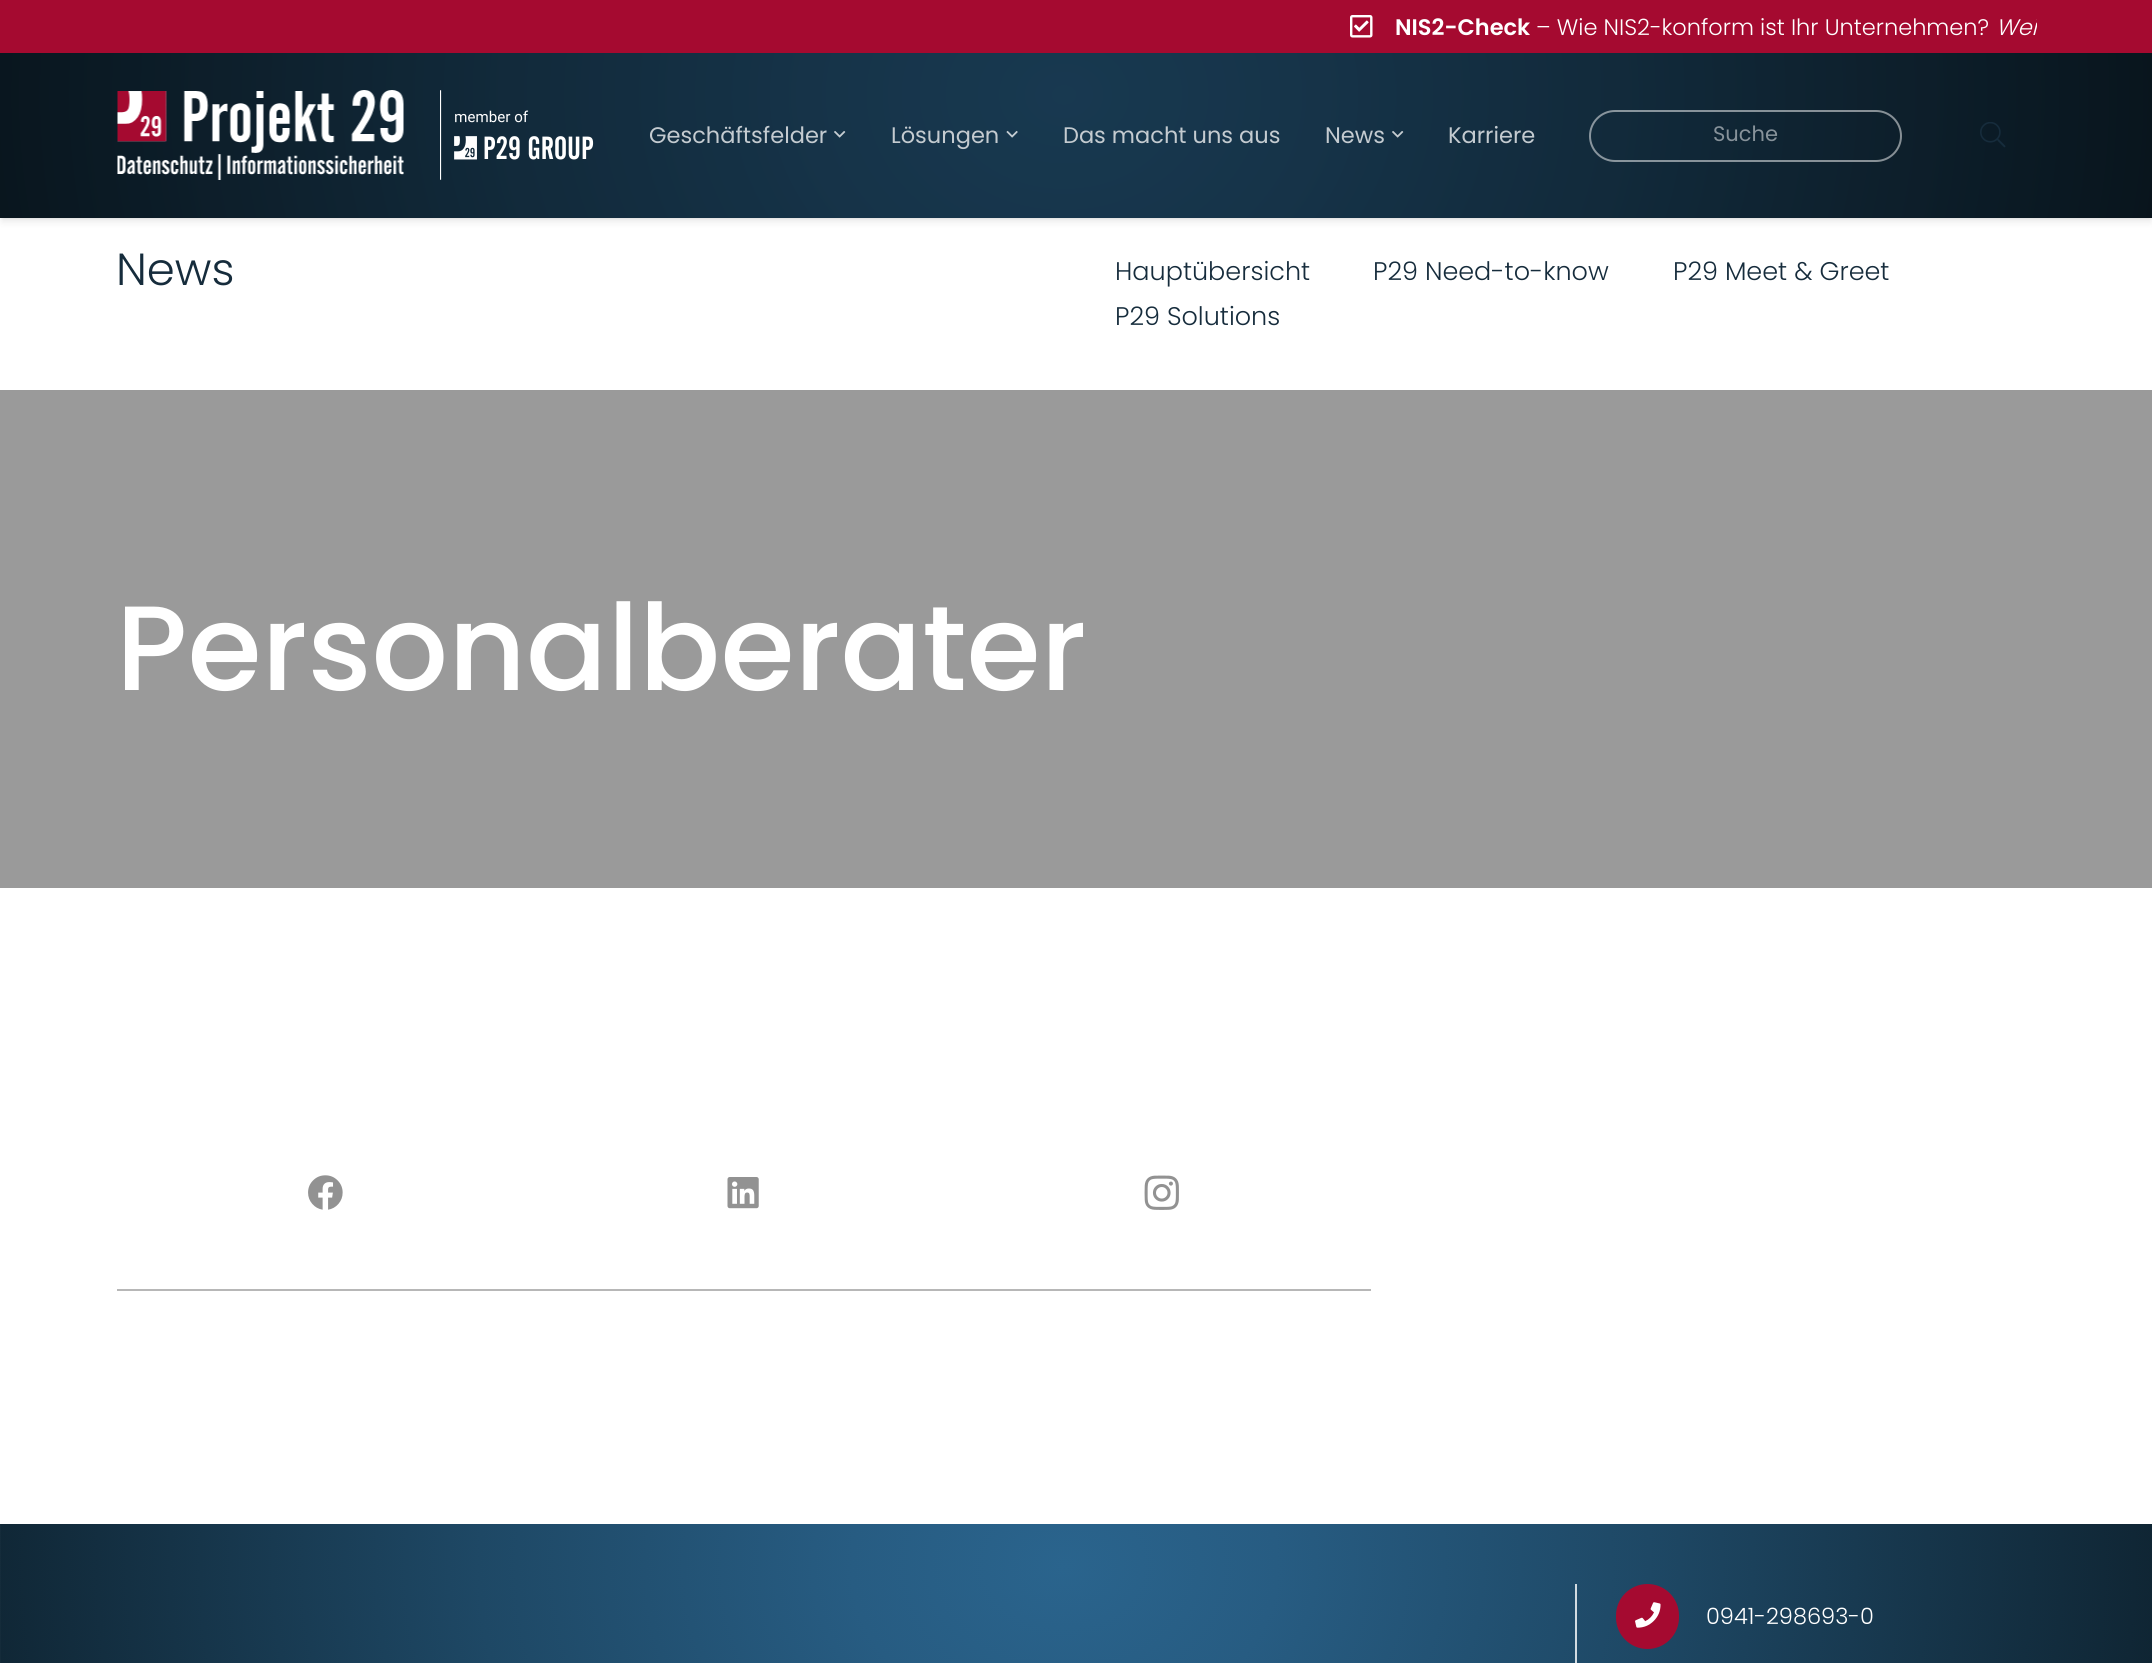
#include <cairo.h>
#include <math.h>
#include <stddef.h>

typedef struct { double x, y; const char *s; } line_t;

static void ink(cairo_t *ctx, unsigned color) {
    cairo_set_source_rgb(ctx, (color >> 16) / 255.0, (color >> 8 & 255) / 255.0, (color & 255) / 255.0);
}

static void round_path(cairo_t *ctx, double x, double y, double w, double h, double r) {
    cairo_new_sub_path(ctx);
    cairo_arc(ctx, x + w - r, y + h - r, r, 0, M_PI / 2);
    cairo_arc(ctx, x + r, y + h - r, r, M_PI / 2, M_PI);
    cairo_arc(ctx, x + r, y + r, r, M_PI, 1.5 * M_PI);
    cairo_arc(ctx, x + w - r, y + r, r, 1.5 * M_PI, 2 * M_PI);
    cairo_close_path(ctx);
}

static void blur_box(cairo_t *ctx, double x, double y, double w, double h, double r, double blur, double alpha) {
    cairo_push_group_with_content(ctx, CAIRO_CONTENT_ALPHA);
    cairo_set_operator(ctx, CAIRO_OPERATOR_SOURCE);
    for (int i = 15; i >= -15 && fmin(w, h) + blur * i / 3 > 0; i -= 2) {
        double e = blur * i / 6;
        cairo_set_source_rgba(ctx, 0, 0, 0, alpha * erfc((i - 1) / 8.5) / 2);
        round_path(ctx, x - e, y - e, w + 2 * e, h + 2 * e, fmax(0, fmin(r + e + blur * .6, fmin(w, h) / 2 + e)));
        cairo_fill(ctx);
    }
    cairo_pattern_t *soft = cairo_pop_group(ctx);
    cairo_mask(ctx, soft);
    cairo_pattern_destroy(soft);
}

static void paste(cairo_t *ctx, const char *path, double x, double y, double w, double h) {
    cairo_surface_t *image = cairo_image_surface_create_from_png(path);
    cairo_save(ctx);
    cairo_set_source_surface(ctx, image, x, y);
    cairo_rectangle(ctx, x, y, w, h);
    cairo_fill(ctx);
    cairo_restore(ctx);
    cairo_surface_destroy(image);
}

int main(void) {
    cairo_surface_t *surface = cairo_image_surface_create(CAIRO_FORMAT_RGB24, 2152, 1663);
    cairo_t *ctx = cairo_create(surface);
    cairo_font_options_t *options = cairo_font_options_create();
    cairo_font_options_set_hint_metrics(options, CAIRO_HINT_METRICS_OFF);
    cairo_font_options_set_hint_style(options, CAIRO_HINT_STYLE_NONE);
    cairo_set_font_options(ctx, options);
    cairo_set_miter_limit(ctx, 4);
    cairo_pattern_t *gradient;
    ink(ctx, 0xFFFFFF);
    cairo_paint(ctx);
    ink(ctx, 0x000000);
    blur_box(ctx, 2, 59, 2149, 162, 0, 4, 0.1);
    ink(ctx, 0xA50A30);
    cairo_rectangle(ctx, 0, 0, 2152, 53);
    cairo_fill(ctx);
    paste(ctx, "media/1.png", 1350, 15, 23, 23);
    cairo_select_font_face(ctx, "Poppins SemiBold", CAIRO_FONT_SLANT_NORMAL, CAIRO_FONT_WEIGHT_NORMAL);
    cairo_set_font_size(ctx, 22.5);
    ink(ctx, 0xFFFFFF);
    cairo_move_to(ctx, 1395, 35);
    cairo_show_text(ctx, "NIS2-Check");
    cairo_select_font_face(ctx, "Poppins Light", CAIRO_FONT_SLANT_NORMAL, CAIRO_FONT_WEIGHT_NORMAL);
    cairo_move_to(ctx, 1536, 35);
    cairo_show_text(ctx, "– Wie NIS2-konform ist Ihr Unternehmen?");
    cairo_save(ctx);
    cairo_rectangle(ctx, 1350, 0, 687, 38);
    cairo_clip(ctx);
    cairo_select_font_face(ctx, "Poppins Light", CAIRO_FONT_SLANT_ITALIC, CAIRO_FONT_WEIGHT_NORMAL);
    cairo_move_to(ctx, 1996, 35);
    cairo_show_text(ctx, "Wei");
    cairo_restore(ctx);
    ink(ctx, 0x000000);
    blur_box(ctx, 2, 57, 2149, 162, 0, 1, 0.05);
    gradient = cairo_pattern_create_radial(0, 0, 0, 0, 0, 1);
    cairo_pattern_set_matrix(gradient, &(cairo_matrix_t){1.0 / 1409, 0, 0, 1.0 / 1107, -1.0 * 1064 / 1409, -1.0 * 95 / 1107});
    cairo_pattern_add_color_stop_rgba(gradient, 0, 0.165, 0.392, 0.553, 1);
    cairo_pattern_add_color_stop_rgba(gradient, 0.15, 0.153, 0.361, 0.51, 1);
    cairo_pattern_add_color_stop_rgba(gradient, 0.42, 0.118, 0.282, 0.396, 1);
    cairo_pattern_add_color_stop_rgba(gradient, 0.76, 0.063, 0.153, 0.212, 1);
    cairo_pattern_add_color_stop_rgba(gradient, 1, 0.02, 0.051, 0.071, 1);
    cairo_pattern_add_color_stop_rgba(gradient, 1, 0.02, 0.051, 0.071, 1);
    cairo_set_source(ctx, gradient);
    cairo_pattern_destroy(gradient);
    cairo_rectangle(ctx, 0, 53, 2152, 165);
    cairo_fill(ctx);
    cairo_set_source_rgba(ctx, 0, 0, 0, 0.43);
    cairo_rectangle(ctx, 0, 53, 2152, 165);
    cairo_fill(ctx);
    paste(ctx, "media/2.png", 117, 90, 287, 90);
    paste(ctx, "media/3.png", 440, 90, 154, 90);
    cairo_select_font_face(ctx, "Poppins", CAIRO_FONT_SLANT_NORMAL, CAIRO_FONT_WEIGHT_NORMAL);
    ink(ctx, 0xC4CBD0);
    cairo_move_to(ctx, 649, 143);
    cairo_show_text(ctx, "Geschäftsfelder");
    paste(ctx, "media/4.png", 834, 131, 12, 7);
    cairo_move_to(ctx, 891, 143);
    cairo_show_text(ctx, "Lösungen");
    paste(ctx, "media/5.png", 1006, 130, 12, 8);
    cairo_move_to(ctx, 1063, 143);
    cairo_show_text(ctx, "Das macht uns aus");
    cairo_move_to(ctx, 1325, 143);
    cairo_show_text(ctx, "News");
    paste(ctx, "media/6.png", 1392, 131, 12, 7);
    cairo_move_to(ctx, 1448, 143);
    cairo_show_text(ctx, "Karriere");
    round_path(ctx, 1590, 111, 311, 50, 25);
    cairo_set_source_rgba(ctx, 1, 1, 1, 0.5);
    cairo_stroke(ctx);
    cairo_set_font_size(ctx, 21);
    ink(ctx, 0x87929A);
    cairo_move_to(ctx, 1713, 141);
    cairo_show_text(ctx, "Suche");
    paste(ctx, "media/7.png", 1980, 122, 26, 26);
    cairo_select_font_face(ctx, "Poppins Light", CAIRO_FONT_SLANT_NORMAL, CAIRO_FONT_WEIGHT_NORMAL);
    cairo_set_font_size(ctx, 45);
    ink(ctx, 0x162C3C);
    cairo_move_to(ctx, 116, 285);
    cairo_show_text(ctx, "News");
    cairo_set_font_size(ctx, 25.5);
    {
        static const line_t items[] = {
            {1115, 280, "Hauptübersicht"},
            {1373, 280, "P29 Need-to-know"},
            {1673, 280, "P29 Meet & Greet"},
            {1115, 325, "P29 Solutions"},
        };
        for (size_t i = 0; i < sizeof items / sizeof *items; i++) {
            cairo_move_to(ctx, items[i].x, items[i].y);
            cairo_show_text(ctx, items[i].s);
        }
    }
    ink(ctx, 0x9A9A9A);
    cairo_rectangle(ctx, 0, 390, 2152, 498);
    cairo_fill(ctx);
    cairo_select_font_face(ctx, "Poppins Medium", CAIRO_FONT_SLANT_NORMAL, CAIRO_FONT_WEIGHT_NORMAL);
    cairo_set_font_size(ctx, 120);
    ink(ctx, 0xFFFFFF);
    cairo_move_to(ctx, 116, 690);
    cairo_show_text(ctx, "Personalberater");
    paste(ctx, "media/8.png", 308, 1175, 35, 35);
    paste(ctx, "media/9.png", 727, 1177, 32, 32);
    paste(ctx, "media/10.png", 1144, 1175, 35, 35);
    ink(ctx, 0xB7B7B7);
    cairo_rectangle(ctx, 117, 1289, 1254, 2);
    cairo_fill(ctx);
    paste(ctx, "media/11.png", 0, 1524, 2152, 139);
    ink(ctx, 0xD2DBE1);
    cairo_rectangle(ctx, 1575, 1584, 2, 79);
    cairo_fill(ctx);
    ink(ctx, 0xA50A30);
    round_path(ctx, 1616, 1584, 63, 65, 31.5);
    cairo_fill(ctx);
    paste(ctx, "media/12.png", 1635, 1602, 26, 26);
    cairo_select_font_face(ctx, "Poppins Light", CAIRO_FONT_SLANT_NORMAL, CAIRO_FONT_WEIGHT_NORMAL);
    cairo_set_font_size(ctx, 22.5);
    ink(ctx, 0xFFFFFF);
    cairo_move_to(ctx, 1706, 1624);
    cairo_show_text(ctx, "0941-298693-0");
    cairo_surface_write_to_png(surface, "image.png");
    cairo_font_options_destroy(options);
    cairo_destroy(ctx);
    cairo_surface_destroy(surface);
    return 0;
}
